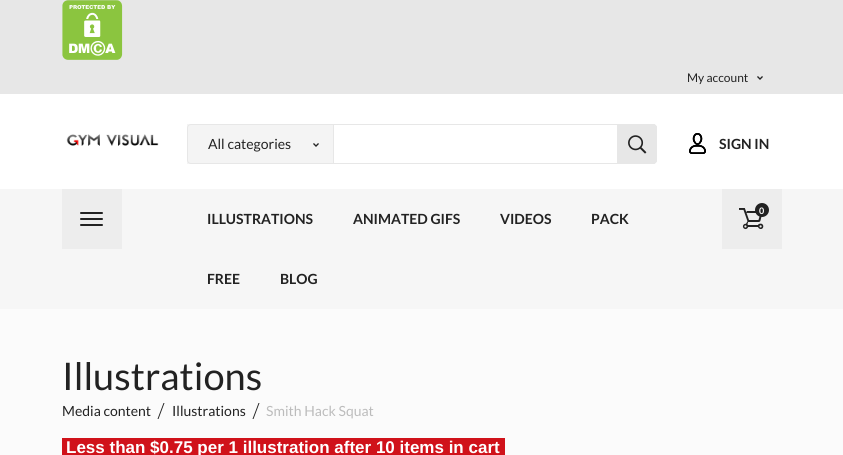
#include <cairo.h>
#include <math.h>
#include <stddef.h>

typedef struct { double x, y; const char *s; } line_t;

static void ink(cairo_t *ctx, unsigned color) {
    cairo_set_source_rgb(ctx, (color >> 16) / 255.0, (color >> 8 & 255) / 255.0, (color & 255) / 255.0);
}

static void paste(cairo_t *ctx, const char *path, double x, double y, double w, double h) {
    cairo_surface_t *image = cairo_image_surface_create_from_png(path);
    cairo_save(ctx);
    cairo_set_source_surface(ctx, image, x, y);
    cairo_rectangle(ctx, x, y, w, h);
    cairo_fill(ctx);
    cairo_restore(ctx);
    cairo_surface_destroy(image);
}

int main(void) {
    cairo_surface_t *surface = cairo_image_surface_create(CAIRO_FORMAT_RGB24, 843, 455);
    cairo_t *ctx = cairo_create(surface);
    cairo_font_options_t *options = cairo_font_options_create();
    cairo_font_options_set_hint_metrics(options, CAIRO_HINT_METRICS_OFF);
    cairo_font_options_set_hint_style(options, CAIRO_HINT_STYLE_NONE);
    cairo_set_font_options(ctx, options);
    cairo_set_miter_limit(ctx, 4);
    ink(ctx, 0xFFFFFF);
    cairo_paint(ctx);
    ink(ctx, 0xE7E7E7);
    cairo_rectangle(ctx, 0, 0, 843, 94);
    cairo_fill(ctx);
    paste(ctx, "media/1.png", 62, 0, 61, 60);
    cairo_select_font_face(ctx, "Lato", CAIRO_FONT_SLANT_NORMAL, CAIRO_FONT_WEIGHT_NORMAL);
    cairo_set_font_size(ctx, 12);
    ink(ctx, 0x222222);
    cairo_move_to(ctx, 687, 82);
    cairo_show_text(ctx, "My account");
    paste(ctx, "media/2.png", 757, 76, 6, 4);
    paste(ctx, "media/3.png", 66, 134, 93, 12);
    cairo_new_path(ctx);
    cairo_move_to(ctx, 187.5, 124.5);
    cairo_line_to(ctx, 653, 124.5);
    cairo_curve_to(ctx, 655, 124.5, 656.5, 126, 656.5, 128);
    cairo_line_to(ctx, 656.5, 160);
    cairo_curve_to(ctx, 656.5, 162, 655, 163.5, 653, 163.5);
    cairo_line_to(ctx, 187.5, 163.5);
    cairo_close_path(ctx);
    ink(ctx, 0xE7E7E7);
    cairo_set_line_width(ctx, 1);
    cairo_stroke(ctx);
    ink(ctx, 0xF4F4F4);
    cairo_rectangle(ctx, 187, 124, 146, 40);
    cairo_fill(ctx);
    paste(ctx, "media/4.png", 313, 143, 6, 4);
    cairo_new_path(ctx);
    cairo_move_to(ctx, 191, 124.5);
    cairo_line_to(ctx, 333.5, 124.5);
    cairo_line_to(ctx, 333.5, 163.5);
    cairo_line_to(ctx, 191, 163.5);
    cairo_curve_to(ctx, 189, 163.5, 187.5, 162, 187.5, 160);
    cairo_line_to(ctx, 187.5, 128);
    cairo_curve_to(ctx, 187.5, 126, 189, 124.5, 191, 124.5);
    cairo_close_path(ctx);
    ink(ctx, 0xE7E7E7);
    cairo_stroke(ctx);
    cairo_set_font_size(ctx, 14);
    ink(ctx, 0x222222);
    cairo_move_to(ctx, 208, 149);
    cairo_show_text(ctx, "All categories");
    ink(ctx, 0xE7E7E7);
    cairo_new_path(ctx);
    cairo_move_to(ctx, 617, 124);
    cairo_line_to(ctx, 653, 124);
    cairo_curve_to(ctx, 655, 124, 657, 126, 657, 128);
    cairo_line_to(ctx, 657, 160);
    cairo_curve_to(ctx, 657, 162, 655, 164, 653, 164);
    cairo_line_to(ctx, 617, 164);
    cairo_close_path(ctx);
    cairo_fill(ctx);
    paste(ctx, "media/5.png", 628, 135, 19, 19);
    cairo_new_path(ctx);
    cairo_move_to(ctx, 617.5, 124.5);
    cairo_line_to(ctx, 653, 124.5);
    cairo_curve_to(ctx, 655, 124.5, 656.5, 126, 656.5, 128);
    cairo_line_to(ctx, 656.5, 160);
    cairo_curve_to(ctx, 656.5, 162, 655, 163.5, 653, 163.5);
    cairo_line_to(ctx, 617.5, 163.5);
    cairo_close_path(ctx);
    cairo_stroke(ctx);
    paste(ctx, "media/6.png", 689, 133, 17, 21);
    cairo_select_font_face(ctx, "Lato", CAIRO_FONT_SLANT_NORMAL, CAIRO_FONT_WEIGHT_BOLD);
    ink(ctx, 0x222222);
    cairo_move_to(ctx, 719, 149);
    cairo_show_text(ctx, "SIGN IN");
    ink(ctx, 0xF6F6F6);
    cairo_rectangle(ctx, 0, 189, 843, 120);
    cairo_fill(ctx);
    ink(ctx, 0xEDEDED);
    cairo_rectangle(ctx, 62, 189, 60, 60);
    cairo_fill(ctx);
    paste(ctx, "media/7.png", 80, 212, 23, 14);
    cairo_rectangle(ctx, 722, 189, 60, 60);
    cairo_fill(ctx);
    paste(ctx, "media/8.png", 739, 208, 25, 22);
    ink(ctx, 0x222222);
    cairo_arc(ctx, 762, 210, 7, 0, 2 * M_PI);
    cairo_fill(ctx);
    cairo_set_font_size(ctx, 9);
    ink(ctx, 0xFFFFFF);
    cairo_move_to(ctx, 759, 214);
    cairo_show_text(ctx, "0");
    cairo_set_font_size(ctx, 14);
    ink(ctx, 0x222222);
    {
        static const line_t items[] = {
            {207, 224, "ILLUSTRATIONS"},
            {353, 224, "ANIMATED GIFS"},
            {500, 224, "VIDEOS"},
            {591, 224, "PACK"},
            {207, 284, "FREE"},
            {280, 284, "BLOG"},
        };
        for (size_t i = 0; i < sizeof items / sizeof *items; i++) {
            cairo_move_to(ctx, items[i].x, items[i].y);
            cairo_show_text(ctx, items[i].s);
        }
    }
    ink(ctx, 0xFBFBFB);
    cairo_rectangle(ctx, 0, 309, 843, 146);
    cairo_fill(ctx);
    cairo_select_font_face(ctx, "Lato", CAIRO_FONT_SLANT_NORMAL, CAIRO_FONT_WEIGHT_NORMAL);
    cairo_set_font_size(ctx, 38);
    ink(ctx, 0x222222);
    cairo_move_to(ctx, 62, 390);
    cairo_show_text(ctx, "Illustrations");
    cairo_set_font_size(ctx, 14);
    cairo_move_to(ctx, 62, 416);
    cairo_show_text(ctx, "Media content");
    cairo_new_path(ctx);
    cairo_move_to(ctx, 163.5, 403);
    cairo_line_to(ctx, 164.5, 403);
    cairo_line_to(ctx, 158.5, 419);
    cairo_line_to(ctx, 157.5, 419);
    cairo_close_path(ctx);
    cairo_fill(ctx);
    cairo_move_to(ctx, 172, 416);
    cairo_show_text(ctx, "Illustrations");
    cairo_new_path(ctx);
    cairo_move_to(ctx, 258.5, 403);
    cairo_line_to(ctx, 259.5, 403);
    cairo_line_to(ctx, 253.5, 419);
    cairo_line_to(ctx, 252.5, 419);
    cairo_close_path(ctx);
    cairo_fill(ctx);
    ink(ctx, 0xBCBCBC);
    cairo_move_to(ctx, 266, 416);
    cairo_show_text(ctx, "Smith Hack Squat");
    ink(ctx, 0xD0121A);
    cairo_rectangle(ctx, 62, 438, 443, 17);
    cairo_fill(ctx);
    cairo_select_font_face(ctx, "Liberation Sans", CAIRO_FONT_SLANT_NORMAL, CAIRO_FONT_WEIGHT_BOLD);
    cairo_set_font_size(ctx, 17);
    ink(ctx, 0xFFFFFF);
    cairo_move_to(ctx, 66, 453);
    cairo_show_text(ctx, "Less than $0.75 per 1 illustration after 10 items in cart");
    cairo_surface_write_to_png(surface, "image.png");
    cairo_font_options_destroy(options);
    cairo_destroy(ctx);
    cairo_surface_destroy(surface);
    return 0;
}
